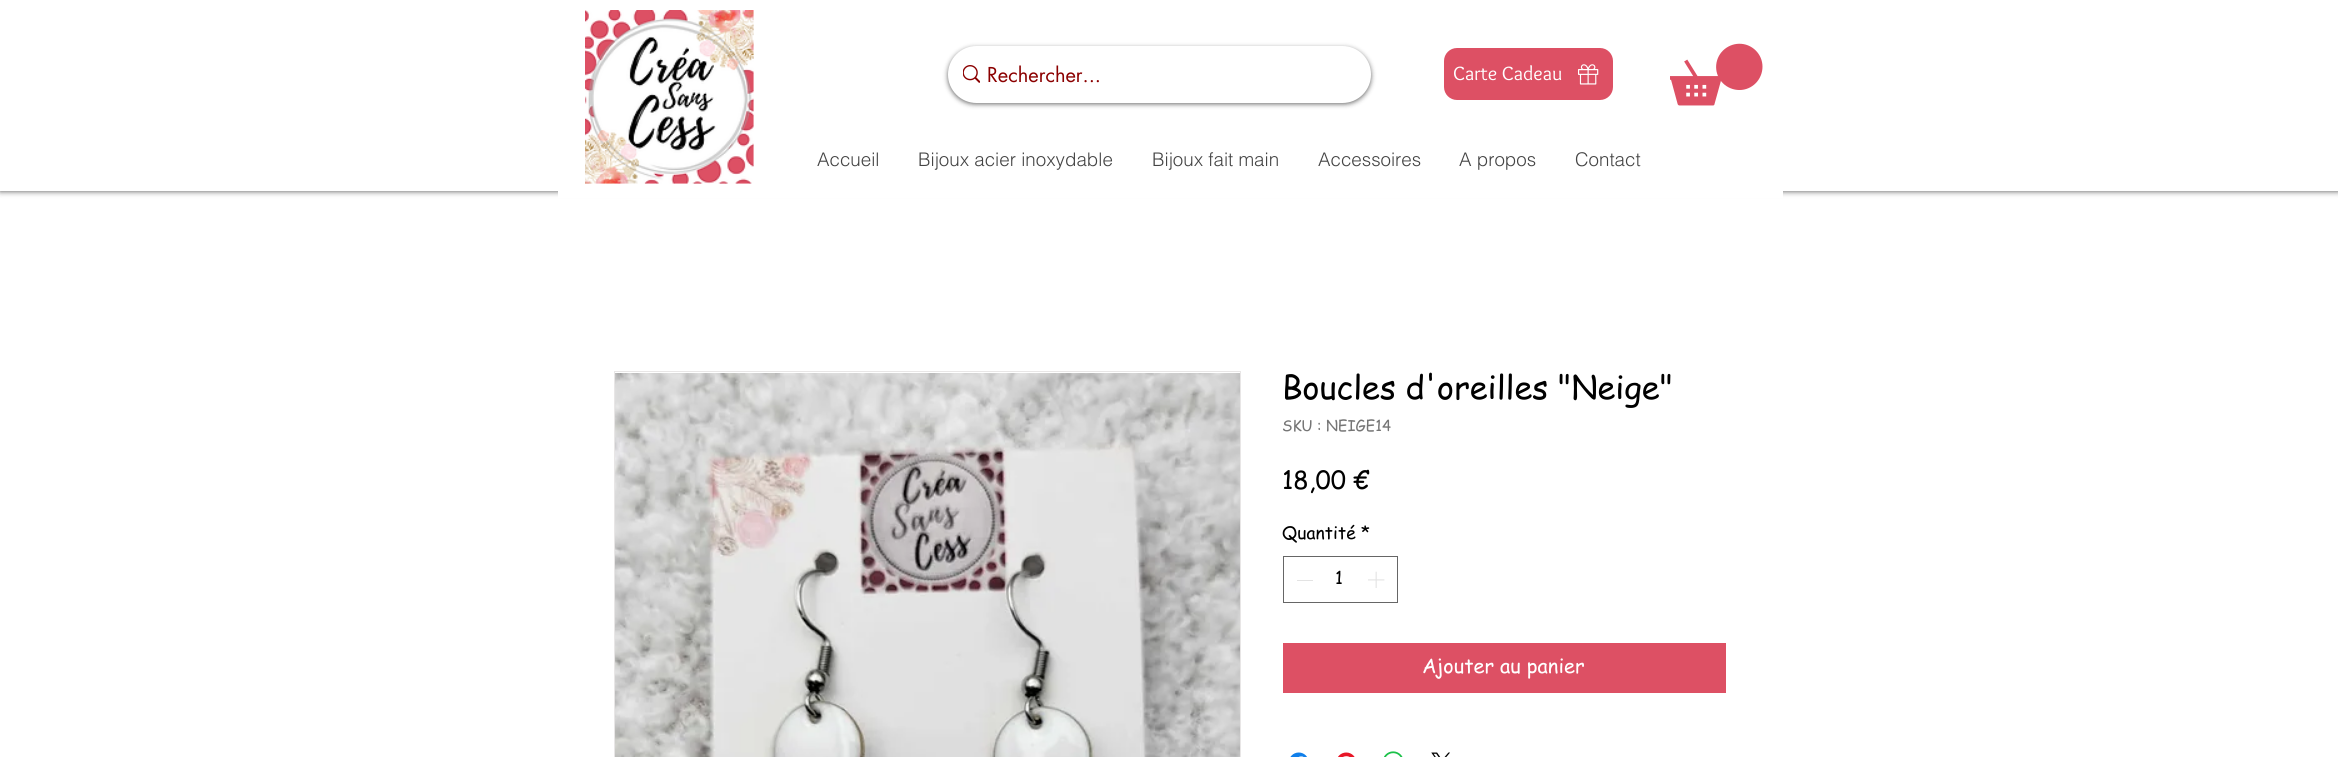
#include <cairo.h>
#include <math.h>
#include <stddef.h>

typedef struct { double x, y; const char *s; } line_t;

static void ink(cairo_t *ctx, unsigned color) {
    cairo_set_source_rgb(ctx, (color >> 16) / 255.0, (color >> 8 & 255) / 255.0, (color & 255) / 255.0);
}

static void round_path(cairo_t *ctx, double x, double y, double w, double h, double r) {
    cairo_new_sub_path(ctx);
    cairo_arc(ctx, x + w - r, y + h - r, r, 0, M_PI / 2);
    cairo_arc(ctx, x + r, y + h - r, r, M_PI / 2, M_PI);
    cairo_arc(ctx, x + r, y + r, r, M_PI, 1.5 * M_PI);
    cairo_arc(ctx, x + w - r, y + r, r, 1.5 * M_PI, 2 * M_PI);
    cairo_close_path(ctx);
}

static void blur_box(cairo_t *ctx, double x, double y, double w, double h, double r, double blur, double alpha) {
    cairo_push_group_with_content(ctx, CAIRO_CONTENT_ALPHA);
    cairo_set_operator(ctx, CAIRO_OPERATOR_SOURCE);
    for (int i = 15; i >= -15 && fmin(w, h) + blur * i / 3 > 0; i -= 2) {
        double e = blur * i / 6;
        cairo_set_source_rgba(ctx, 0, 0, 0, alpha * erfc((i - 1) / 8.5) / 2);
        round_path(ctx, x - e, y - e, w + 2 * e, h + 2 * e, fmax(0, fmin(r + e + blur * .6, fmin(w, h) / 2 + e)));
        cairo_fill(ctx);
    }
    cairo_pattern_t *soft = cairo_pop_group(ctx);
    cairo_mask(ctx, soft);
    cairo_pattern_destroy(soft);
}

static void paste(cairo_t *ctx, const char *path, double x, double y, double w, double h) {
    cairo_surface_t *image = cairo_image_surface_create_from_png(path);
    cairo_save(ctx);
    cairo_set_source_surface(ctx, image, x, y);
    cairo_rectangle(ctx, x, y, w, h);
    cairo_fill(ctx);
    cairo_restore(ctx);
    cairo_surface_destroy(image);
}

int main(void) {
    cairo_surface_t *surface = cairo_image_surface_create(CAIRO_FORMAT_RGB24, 2338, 757);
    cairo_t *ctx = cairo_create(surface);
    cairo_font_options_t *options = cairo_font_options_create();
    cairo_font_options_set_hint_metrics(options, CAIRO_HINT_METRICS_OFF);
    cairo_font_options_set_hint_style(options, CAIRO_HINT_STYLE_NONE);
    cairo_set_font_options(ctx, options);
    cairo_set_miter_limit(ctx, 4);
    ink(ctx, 0xFFFFFF);
    cairo_paint(ctx);
    ink(ctx, 0x000000);
    blur_box(ctx, 0, 0, 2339, 191, 0, 3, 0.7);
    ink(ctx, 0xFFFFFF);
    cairo_rectangle(ctx, 0, 0, 2338, 191);
    cairo_fill(ctx);
    paste(ctx, "media/1.png", 585, 10, 169, 174);
    ink(ctx, 0x000000);
    blur_box(ctx, 948, 48, 423, 56, 28, 2.5, 0.6);
    ink(ctx, 0xFFFFFF);
    round_path(ctx, 948, 46, 423, 57, 28.5);
    cairo_fill(ctx);
    paste(ctx, "media/2.png", 963, 65, 17, 18);
    cairo_select_font_face(ctx, "futura", CAIRO_FONT_SLANT_NORMAL, CAIRO_FONT_WEIGHT_NORMAL);
    cairo_set_font_size(ctx, 20);
    ink(ctx, 0x8B0000);
    cairo_move_to(ctx, 987, 82);
    cairo_show_text(ctx, "Rechercher...");
    ink(ctx, 0xDD5064);
    round_path(ctx, 1444, 48, 169, 52, 13);
    cairo_fill(ctx);
    cairo_select_font_face(ctx, "Overlock", CAIRO_FONT_SLANT_NORMAL, CAIRO_FONT_WEIGHT_NORMAL);
    ink(ctx, 0xFFFFFF);
    cairo_move_to(ctx, 1453, 80);
    cairo_show_text(ctx, "Carte Cadeau");
    paste(ctx, "media/3.png", 1578, 64, 21, 21);
    paste(ctx, "media/4.png", 1670, 43, 93, 63);
    cairo_select_font_face(ctx, "helvetica Light", CAIRO_FONT_SLANT_NORMAL, CAIRO_FONT_WEIGHT_NORMAL);
    cairo_set_font_size(ctx, 18.75);
    ink(ctx, 0x444444);
    {
        static const line_t items[] = {
            {817, 166, "Accueil"},
            {918, 166, "Bijoux acier inoxydable"},
            {1152, 166, "Bijoux fait main"},
            {1318, 166, "Accessoires"},
            {1459, 166, "A propos"},
            {1575, 166, "Contact"},
        };
        for (size_t i = 0; i < sizeof items / sizeof *items; i++) {
            cairo_move_to(ctx, items[i].x, items[i].y);
            cairo_show_text(ctx, items[i].s);
        }
    }
    ink(ctx, 0xFFFFFF);
    cairo_rectangle(ctx, 558, 191, 1225, 7);
    cairo_fill(ctx);
    cairo_rectangle(ctx, 614.5, 371.5, 626, 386);
    ink(ctx, 0xE8E6E6);
    cairo_set_line_width(ctx, 1);
    cairo_stroke(ctx);
    paste(ctx, "media/5.png", 615, 373, 625, 384);
    cairo_select_font_face(ctx, "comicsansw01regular", CAIRO_FONT_SLANT_NORMAL, CAIRO_FONT_WEIGHT_NORMAL);
    cairo_set_font_size(ctx, 32.5);
    ink(ctx, 0x000000);
    cairo_move_to(ctx, 1282, 399);
    cairo_show_text(ctx, "Boucles d'oreilles \"Neige\"");
    cairo_set_font_size(ctx, 15);
    ink(ctx, 0x757575);
    cairo_move_to(ctx, 1282, 431);
    cairo_show_text(ctx, "SKU : NEIGE14");
    cairo_set_font_size(ctx, 25);
    ink(ctx, 0x000000);
    cairo_move_to(ctx, 1282, 489);
    cairo_show_text(ctx, "18,00 €");
    cairo_set_font_size(ctx, 17.5);
    cairo_move_to(ctx, 1282, 539);
    cairo_show_text(ctx, "Quantité *");
    cairo_rectangle(ctx, 1283.5, 556.5, 114, 46);
    ink(ctx, 0x666666);
    cairo_stroke(ctx);
    ink(ctx, 0xE3E3E3);
    cairo_rectangle(ctx, 1297, 580, 16, 1);
    cairo_fill(ctx);
    ink(ctx, 0x000000);
    cairo_move_to(ctx, 1335, 584);
    cairo_show_text(ctx, "1");
    paste(ctx, "media/6.png", 1368, 571, 17, 17);
    ink(ctx, 0xDD5064);
    cairo_rectangle(ctx, 1283, 643, 443, 50);
    cairo_fill(ctx);
    cairo_set_font_size(ctx, 20);
    ink(ctx, 0xFFFFFF);
    cairo_move_to(ctx, 1422, 673);
    cairo_show_text(ctx, "Ajouter au panier");
    paste(ctx, "media/7.png", 1290, 752, 17, 5);
    paste(ctx, "media/8.png", 1338, 752, 17, 5);
    paste(ctx, "media/9.png", 1384, 751, 19, 6);
    paste(ctx, "media/10.png", 1431, 752, 19, 5);
    cairo_surface_write_to_png(surface, "image.png");
    cairo_font_options_destroy(options);
    cairo_destroy(ctx);
    cairo_surface_destroy(surface);
    return 0;
}
